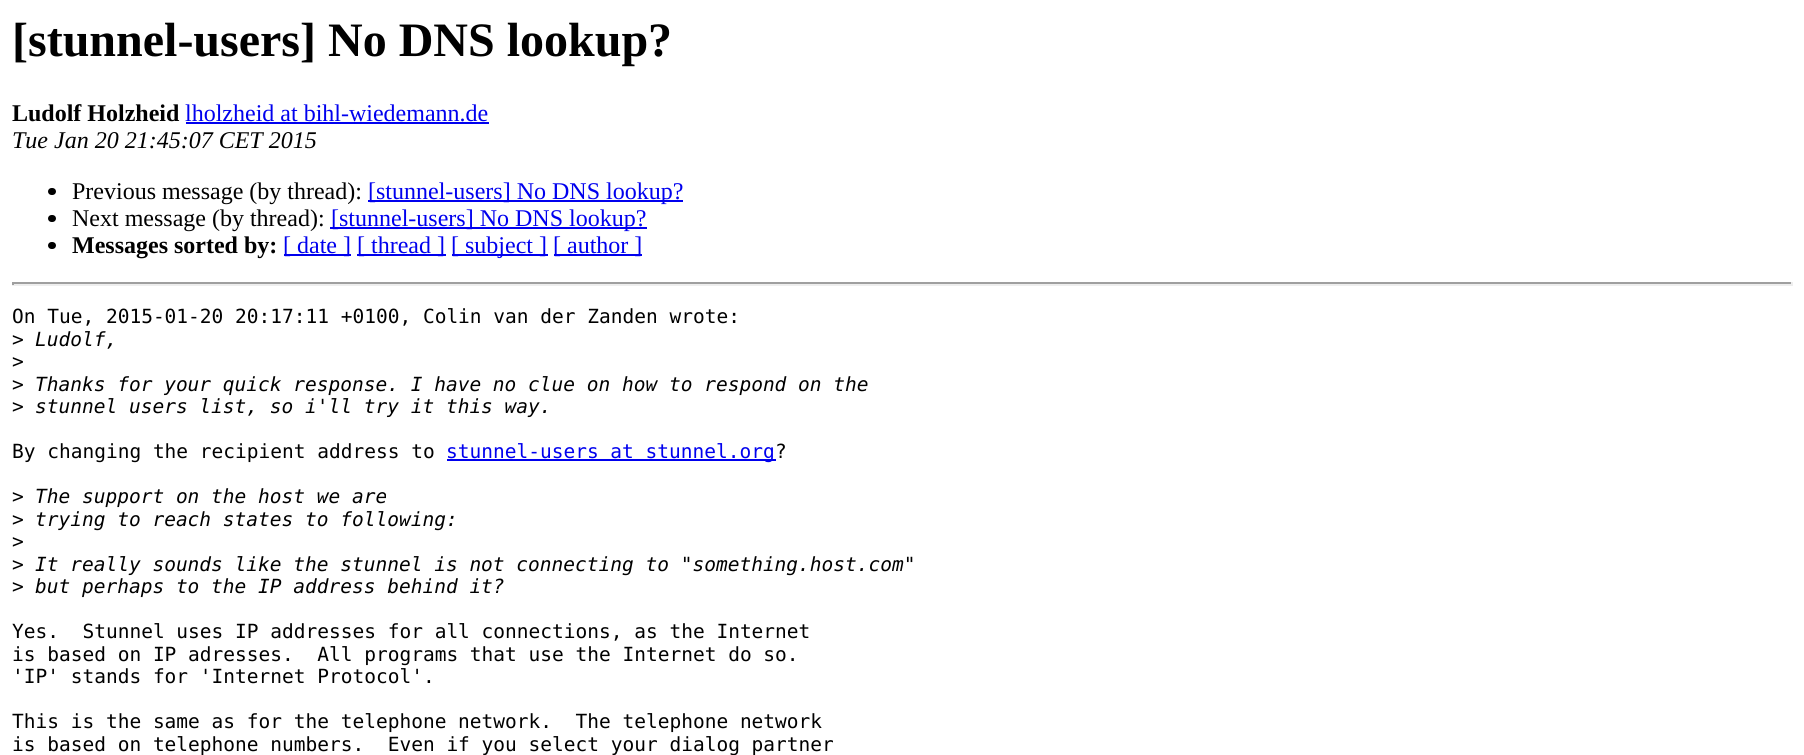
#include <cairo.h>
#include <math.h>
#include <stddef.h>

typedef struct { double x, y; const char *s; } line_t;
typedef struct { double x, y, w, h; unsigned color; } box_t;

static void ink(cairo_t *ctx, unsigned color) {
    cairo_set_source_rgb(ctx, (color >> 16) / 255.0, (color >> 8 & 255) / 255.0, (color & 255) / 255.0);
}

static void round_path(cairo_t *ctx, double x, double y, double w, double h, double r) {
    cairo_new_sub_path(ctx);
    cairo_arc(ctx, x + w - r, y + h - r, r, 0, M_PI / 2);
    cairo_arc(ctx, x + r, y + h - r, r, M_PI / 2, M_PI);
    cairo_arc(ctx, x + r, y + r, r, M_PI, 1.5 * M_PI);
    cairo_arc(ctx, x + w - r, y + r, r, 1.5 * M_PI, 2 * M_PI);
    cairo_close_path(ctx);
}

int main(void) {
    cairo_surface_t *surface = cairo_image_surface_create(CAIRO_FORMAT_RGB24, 1804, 755);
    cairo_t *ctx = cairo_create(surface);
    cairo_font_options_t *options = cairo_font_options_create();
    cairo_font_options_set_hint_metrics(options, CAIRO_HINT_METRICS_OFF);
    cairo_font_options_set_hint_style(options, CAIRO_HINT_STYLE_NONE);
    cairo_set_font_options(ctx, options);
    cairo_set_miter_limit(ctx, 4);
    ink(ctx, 0xFFFFFF);
    cairo_paint(ctx);
    cairo_select_font_face(ctx, "Liberation Serif", CAIRO_FONT_SLANT_NORMAL, CAIRO_FONT_WEIGHT_BOLD);
    cairo_set_font_size(ctx, 48);
    ink(ctx, 0x000000);
    cairo_move_to(ctx, 12, 56);
    cairo_show_text(ctx, "[stunnel-users] No DNS lookup?");
    cairo_set_font_size(ctx, 24);
    cairo_move_to(ctx, 12, 121);
    cairo_show_text(ctx, "Ludolf Holzheid");
    cairo_select_font_face(ctx, "Liberation Serif", CAIRO_FONT_SLANT_NORMAL, CAIRO_FONT_WEIGHT_NORMAL);
    ink(ctx, 0x0000EE);
    cairo_move_to(ctx, 185, 121);
    cairo_show_text(ctx, "lholzheid at bihl-wiedemann.de");
    cairo_rectangle(ctx, 186, 122, 303, 2);
    cairo_fill(ctx);
    cairo_select_font_face(ctx, "Liberation Serif", CAIRO_FONT_SLANT_ITALIC, CAIRO_FONT_WEIGHT_NORMAL);
    ink(ctx, 0x000000);
    cairo_move_to(ctx, 12, 148);
    cairo_show_text(ctx, "Tue Jan 20 21:45:07 CET 2015");
    round_path(ctx, 48, 188, 8, 7, 3.5);
    cairo_fill(ctx);
    cairo_select_font_face(ctx, "Liberation Serif", CAIRO_FONT_SLANT_NORMAL, CAIRO_FONT_WEIGHT_NORMAL);
    cairo_move_to(ctx, 72, 199);
    cairo_show_text(ctx, "Previous message (by thread):");
    ink(ctx, 0x0000EE);
    cairo_rectangle(ctx, 368, 200, 315, 2);
    cairo_fill(ctx);
    cairo_move_to(ctx, 368, 199);
    cairo_show_text(ctx, "[stunnel-users] No DNS lookup?");
    ink(ctx, 0x000000);
    round_path(ctx, 48, 215, 8, 7, 3.5);
    cairo_fill(ctx);
    cairo_move_to(ctx, 72, 226);
    cairo_show_text(ctx, "Next message (by thread):");
    ink(ctx, 0x0000EE);
    cairo_rectangle(ctx, 330, 227, 317, 2);
    cairo_fill(ctx);
    cairo_move_to(ctx, 331, 226);
    cairo_show_text(ctx, "[stunnel-users] No DNS lookup?");
    ink(ctx, 0x000000);
    round_path(ctx, 48, 242, 8, 7, 3.5);
    cairo_fill(ctx);
    cairo_select_font_face(ctx, "Liberation Serif", CAIRO_FONT_SLANT_NORMAL, CAIRO_FONT_WEIGHT_BOLD);
    cairo_move_to(ctx, 72, 253);
    cairo_show_text(ctx, "Messages sorted by:");
    ink(ctx, 0x0000EE);
    cairo_rectangle(ctx, 284, 254, 67, 2);
    cairo_fill(ctx);
    cairo_select_font_face(ctx, "Liberation Serif", CAIRO_FONT_SLANT_NORMAL, CAIRO_FONT_WEIGHT_NORMAL);
    cairo_move_to(ctx, 283, 253);
    cairo_show_text(ctx, "[ date ]");
    cairo_rectangle(ctx, 357, 254, 89, 2);
    cairo_fill(ctx);
    cairo_move_to(ctx, 357, 253);
    cairo_show_text(ctx, "[ thread ]");
    cairo_rectangle(ctx, 452, 254, 96, 2);
    cairo_fill(ctx);
    cairo_move_to(ctx, 451, 253);
    cairo_show_text(ctx, "[ subject ]");
    cairo_rectangle(ctx, 554, 254, 88, 2);
    cairo_fill(ctx);
    cairo_move_to(ctx, 553, 253);
    cairo_show_text(ctx, "[ author ]");
    {
        static const box_t items[] = {
            {12, 282, 1781, 2, 0x9F9F9F},
            {1791, 282, 2, 3, 0xEEEEEE},
            {12, 284, 1781, 2, 0xEEEEEE},
            {12, 282, 2, 3, 0x9F9F9F},
        };
        for (size_t i = 0; i < sizeof items / sizeof *items; i++) {
            ink(ctx, items[i].color);
            cairo_rectangle(ctx, items[i].x, items[i].y, items[i].w, items[i].h);
            cairo_fill(ctx);
        }
    }
    cairo_select_font_face(ctx, "DejaVu Sans Mono", CAIRO_FONT_SLANT_NORMAL, CAIRO_FONT_WEIGHT_NORMAL);
    cairo_set_font_size(ctx, 19.5);
    ink(ctx, 0x000000);
    cairo_move_to(ctx, 12, 323);
    cairo_show_text(ctx, "On Tue, 2015-01-20 20:17:11 +0100, Colin van der Zanden wrote:");
    cairo_move_to(ctx, 12, 346);
    cairo_show_text(ctx, ">");
    cairo_select_font_face(ctx, "DejaVu Sans Mono", CAIRO_FONT_SLANT_ITALIC, CAIRO_FONT_WEIGHT_NORMAL);
    cairo_move_to(ctx, 35, 346);
    cairo_show_text(ctx, "Ludolf,");
    cairo_select_font_face(ctx, "DejaVu Sans Mono", CAIRO_FONT_SLANT_NORMAL, CAIRO_FONT_WEIGHT_NORMAL);
    cairo_move_to(ctx, 12, 368);
    cairo_show_text(ctx, ">");
    cairo_move_to(ctx, 12, 391);
    cairo_show_text(ctx, ">");
    cairo_select_font_face(ctx, "DejaVu Sans Mono", CAIRO_FONT_SLANT_ITALIC, CAIRO_FONT_WEIGHT_NORMAL);
    cairo_move_to(ctx, 35, 391);
    cairo_show_text(ctx, "Thanks for your quick response. I have no clue on how to respond on the");
    cairo_select_font_face(ctx, "DejaVu Sans Mono", CAIRO_FONT_SLANT_NORMAL, CAIRO_FONT_WEIGHT_NORMAL);
    cairo_move_to(ctx, 12, 413);
    cairo_show_text(ctx, ">");
    cairo_select_font_face(ctx, "DejaVu Sans Mono", CAIRO_FONT_SLANT_ITALIC, CAIRO_FONT_WEIGHT_NORMAL);
    cairo_move_to(ctx, 35, 413);
    cairo_show_text(ctx, "stunnel users list, so i'll try it this way.");
    cairo_select_font_face(ctx, "DejaVu Sans Mono", CAIRO_FONT_SLANT_NORMAL, CAIRO_FONT_WEIGHT_NORMAL);
    cairo_move_to(ctx, 12, 458);
    cairo_show_text(ctx, "By changing the recipient address to");
    ink(ctx, 0x0000EE);
    cairo_rectangle(ctx, 447, 459, 329, 2);
    cairo_fill(ctx);
    cairo_move_to(ctx, 446, 458);
    cairo_show_text(ctx, "stunnel-users at stunnel.org");
    ink(ctx, 0x000000);
    cairo_move_to(ctx, 775, 458);
    cairo_show_text(ctx, "?");
    cairo_move_to(ctx, 12, 503);
    cairo_show_text(ctx, ">");
    cairo_select_font_face(ctx, "DejaVu Sans Mono", CAIRO_FONT_SLANT_ITALIC, CAIRO_FONT_WEIGHT_NORMAL);
    cairo_move_to(ctx, 35, 503);
    cairo_show_text(ctx, "The support on the host we are");
    cairo_select_font_face(ctx, "DejaVu Sans Mono", CAIRO_FONT_SLANT_NORMAL, CAIRO_FONT_WEIGHT_NORMAL);
    cairo_move_to(ctx, 12, 526);
    cairo_show_text(ctx, ">");
    cairo_select_font_face(ctx, "DejaVu Sans Mono", CAIRO_FONT_SLANT_ITALIC, CAIRO_FONT_WEIGHT_NORMAL);
    cairo_move_to(ctx, 35, 526);
    cairo_show_text(ctx, "trying to reach states to following:");
    cairo_select_font_face(ctx, "DejaVu Sans Mono", CAIRO_FONT_SLANT_NORMAL, CAIRO_FONT_WEIGHT_NORMAL);
    cairo_move_to(ctx, 12, 548);
    cairo_show_text(ctx, ">");
    cairo_move_to(ctx, 12, 571);
    cairo_show_text(ctx, ">");
    cairo_select_font_face(ctx, "DejaVu Sans Mono", CAIRO_FONT_SLANT_ITALIC, CAIRO_FONT_WEIGHT_NORMAL);
    cairo_move_to(ctx, 35, 571);
    cairo_show_text(ctx, "It really sounds like the stunnel is not connecting to \"something.host.com\"");
    cairo_select_font_face(ctx, "DejaVu Sans Mono", CAIRO_FONT_SLANT_NORMAL, CAIRO_FONT_WEIGHT_NORMAL);
    cairo_move_to(ctx, 12, 593);
    cairo_show_text(ctx, ">");
    cairo_select_font_face(ctx, "DejaVu Sans Mono", CAIRO_FONT_SLANT_ITALIC, CAIRO_FONT_WEIGHT_NORMAL);
    cairo_move_to(ctx, 35, 593);
    cairo_show_text(ctx, "but perhaps to the IP address behind it?");
    cairo_select_font_face(ctx, "DejaVu Sans Mono", CAIRO_FONT_SLANT_NORMAL, CAIRO_FONT_WEIGHT_NORMAL);
    {
        static const line_t items[] = {
            {12, 638, "Yes.  Stunnel uses IP addresses for all connections, as the Internet"},
            {12, 661, "is based on IP adresses.  All programs that use the Internet do so."},
            {12, 683, "'IP' stands for 'Internet Protocol'."},
            {12, 728, "This is the same as for the telephone network.  The telephone network"},
            {12, 751, "is based on telephone numbers.  Even if you select your dialog partner"},
        };
        for (size_t i = 0; i < sizeof items / sizeof *items; i++) {
            cairo_move_to(ctx, items[i].x, items[i].y);
            cairo_show_text(ctx, items[i].s);
        }
    }
    cairo_surface_write_to_png(surface, "image.png");
    cairo_font_options_destroy(options);
    cairo_destroy(ctx);
    cairo_surface_destroy(surface);
    return 0;
}
